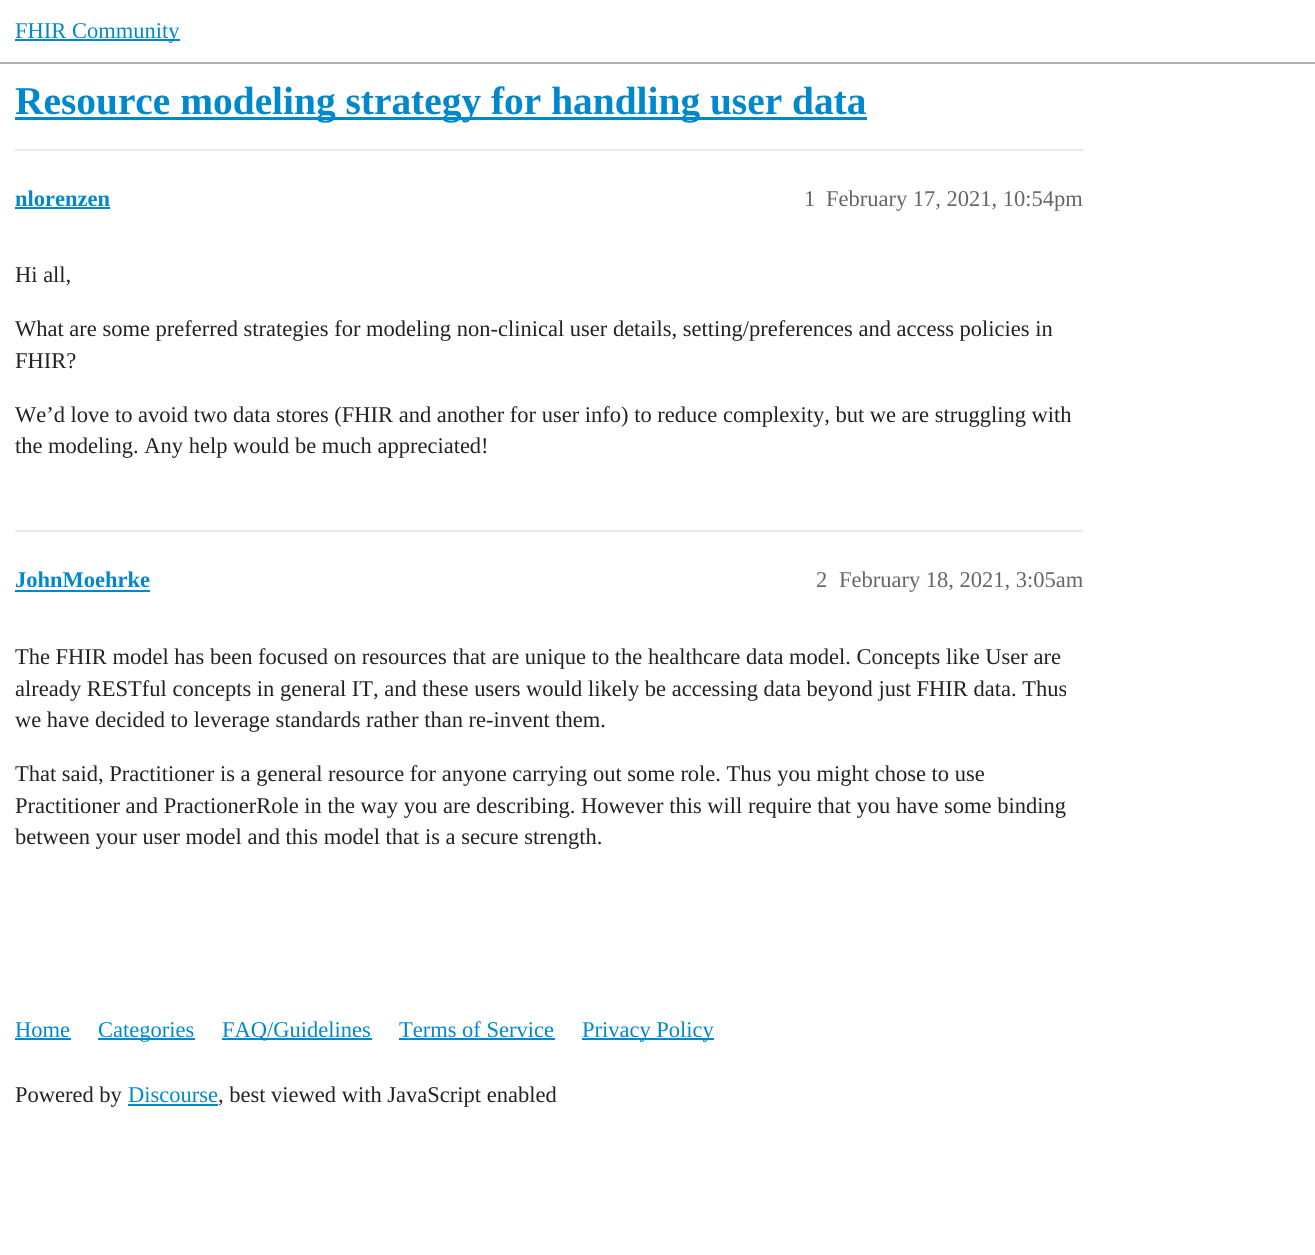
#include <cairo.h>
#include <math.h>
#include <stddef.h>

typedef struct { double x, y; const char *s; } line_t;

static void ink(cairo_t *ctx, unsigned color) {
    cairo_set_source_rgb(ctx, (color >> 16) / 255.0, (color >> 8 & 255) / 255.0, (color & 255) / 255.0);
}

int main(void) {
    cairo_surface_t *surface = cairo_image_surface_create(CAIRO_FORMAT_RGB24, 1315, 1255);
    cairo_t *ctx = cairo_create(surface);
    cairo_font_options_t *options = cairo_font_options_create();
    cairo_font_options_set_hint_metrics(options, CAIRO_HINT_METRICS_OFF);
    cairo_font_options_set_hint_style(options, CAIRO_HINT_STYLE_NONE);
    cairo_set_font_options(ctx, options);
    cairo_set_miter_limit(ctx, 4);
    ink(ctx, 0xFFFFFF);
    cairo_paint(ctx);
    ink(ctx, 0xAFAFAF);
    cairo_rectangle(ctx, 0, 62, 1315, 2);
    cairo_fill(ctx);
    ink(ctx, 0x0088CC);
    cairo_rectangle(ctx, 15, 39, 165, 2);
    cairo_fill(ctx);
    cairo_select_font_face(ctx, "Liberation Serif", CAIRO_FONT_SLANT_NORMAL, CAIRO_FONT_WEIGHT_NORMAL);
    cairo_set_font_size(ctx, 22.5);
    cairo_move_to(ctx, 15, 38);
    cairo_show_text(ctx, "FHIR Community");
    cairo_rectangle(ctx, 15, 117, 852, 3);
    cairo_fill(ctx);
    cairo_select_font_face(ctx, "Liberation Serif", CAIRO_FONT_SLANT_NORMAL, CAIRO_FONT_WEIGHT_BOLD);
    cairo_set_font_size(ctx, 39.4);
    cairo_move_to(ctx, 15, 114);
    cairo_show_text(ctx, "Resource modeling strategy for handling user data");
    ink(ctx, 0xE9E9E9);
    cairo_rectangle(ctx, 15, 149, 1068, 2);
    cairo_fill(ctx);
    cairo_set_font_size(ctx, 22.5);
    ink(ctx, 0x0088CC);
    cairo_move_to(ctx, 15, 206);
    cairo_show_text(ctx, "nlorenzen");
    cairo_rectangle(ctx, 15, 207, 95, 2);
    cairo_fill(ctx);
    cairo_select_font_face(ctx, "Liberation Serif", CAIRO_FONT_SLANT_NORMAL, CAIRO_FONT_WEIGHT_NORMAL);
    ink(ctx, 0x666666);
    cairo_move_to(ctx, 804, 206);
    cairo_show_text(ctx, "1");
    cairo_move_to(ctx, 826, 206);
    cairo_show_text(ctx, "February 17, 2021, 10:54pm");
    ink(ctx, 0x222222);
    {
        static const line_t items[] = {
            {15, 282, "Hi all,"},
            {15, 336, "What are some preferred strategies for modeling non-clinical user details, setting/preferences and access policies in"},
            {15, 368, "FHIR?"},
            {15, 422, "We’d love to avoid two data stores (FHIR and another for user info) to reduce complexity, but we are struggling with"},
            {15, 453, "the modeling. Any help would be much appreciated!"},
        };
        for (size_t i = 0; i < sizeof items / sizeof *items; i++) {
            cairo_move_to(ctx, items[i].x, items[i].y);
            cairo_show_text(ctx, items[i].s);
        }
    }
    ink(ctx, 0xE9E9E9);
    cairo_rectangle(ctx, 15, 530, 1068, 2);
    cairo_fill(ctx);
    cairo_select_font_face(ctx, "Liberation Serif", CAIRO_FONT_SLANT_NORMAL, CAIRO_FONT_WEIGHT_BOLD);
    ink(ctx, 0x0088CC);
    cairo_move_to(ctx, 15, 587);
    cairo_show_text(ctx, "JohnMoehrke");
    cairo_rectangle(ctx, 15, 590, 135, 2);
    cairo_fill(ctx);
    cairo_select_font_face(ctx, "Liberation Serif", CAIRO_FONT_SLANT_NORMAL, CAIRO_FONT_WEIGHT_NORMAL);
    ink(ctx, 0x666666);
    cairo_move_to(ctx, 816, 587);
    cairo_show_text(ctx, "2");
    cairo_move_to(ctx, 839, 587);
    cairo_show_text(ctx, "February 18, 2021, 3:05am");
    ink(ctx, 0x222222);
    {
        static const line_t items[] = {
            {15, 664, "The FHIR model has been focused on resources that are unique to the healthcare data model. Concepts like User are"},
            {15, 696, "already RESTful concepts in general IT, and these users would likely be accessing data beyond just FHIR data. Thus"},
            {15, 727, "we have decided to leverage standards rather than re-invent them."},
            {15, 781, "That said, Practitioner is a general resource for anyone carrying out some role. Thus you might chose to use"},
            {15, 813, "Practitioner and PractionerRole in the way you are describing. However this will require that you have some binding"},
            {15, 844, "between your user model and this model that is a secure strength."},
        };
        for (size_t i = 0; i < sizeof items / sizeof *items; i++) {
            cairo_move_to(ctx, items[i].x, items[i].y);
            cairo_show_text(ctx, items[i].s);
        }
    }
    ink(ctx, 0x0088CC);
    cairo_move_to(ctx, 15, 1037);
    cairo_show_text(ctx, "Home");
    cairo_rectangle(ctx, 15, 1038, 56, 2);
    cairo_fill(ctx);
    cairo_rectangle(ctx, 98, 1038, 97, 2);
    cairo_fill(ctx);
    cairo_move_to(ctx, 98, 1037);
    cairo_show_text(ctx, "Categories");
    cairo_rectangle(ctx, 222, 1038, 150, 2);
    cairo_fill(ctx);
    cairo_move_to(ctx, 222, 1037);
    cairo_show_text(ctx, "FAQ/Guidelines");
    cairo_move_to(ctx, 399, 1037);
    cairo_show_text(ctx, "Terms of Service");
    cairo_rectangle(ctx, 399, 1038, 156, 2);
    cairo_fill(ctx);
    cairo_rectangle(ctx, 582, 1038, 132, 2);
    cairo_fill(ctx);
    cairo_move_to(ctx, 582, 1037);
    cairo_show_text(ctx, "Privacy Policy");
    ink(ctx, 0x222222);
    cairo_move_to(ctx, 15, 1102);
    cairo_show_text(ctx, "Powered by");
    ink(ctx, 0x0088CC);
    cairo_move_to(ctx, 128, 1102);
    cairo_show_text(ctx, "Discourse");
    cairo_rectangle(ctx, 128, 1104, 90, 2);
    cairo_fill(ctx);
    ink(ctx, 0x222222);
    cairo_move_to(ctx, 218, 1102);
    cairo_show_text(ctx, ", best viewed with JavaScript enabled");
    cairo_surface_write_to_png(surface, "image.png");
    cairo_font_options_destroy(options);
    cairo_destroy(ctx);
    cairo_surface_destroy(surface);
    return 0;
}
